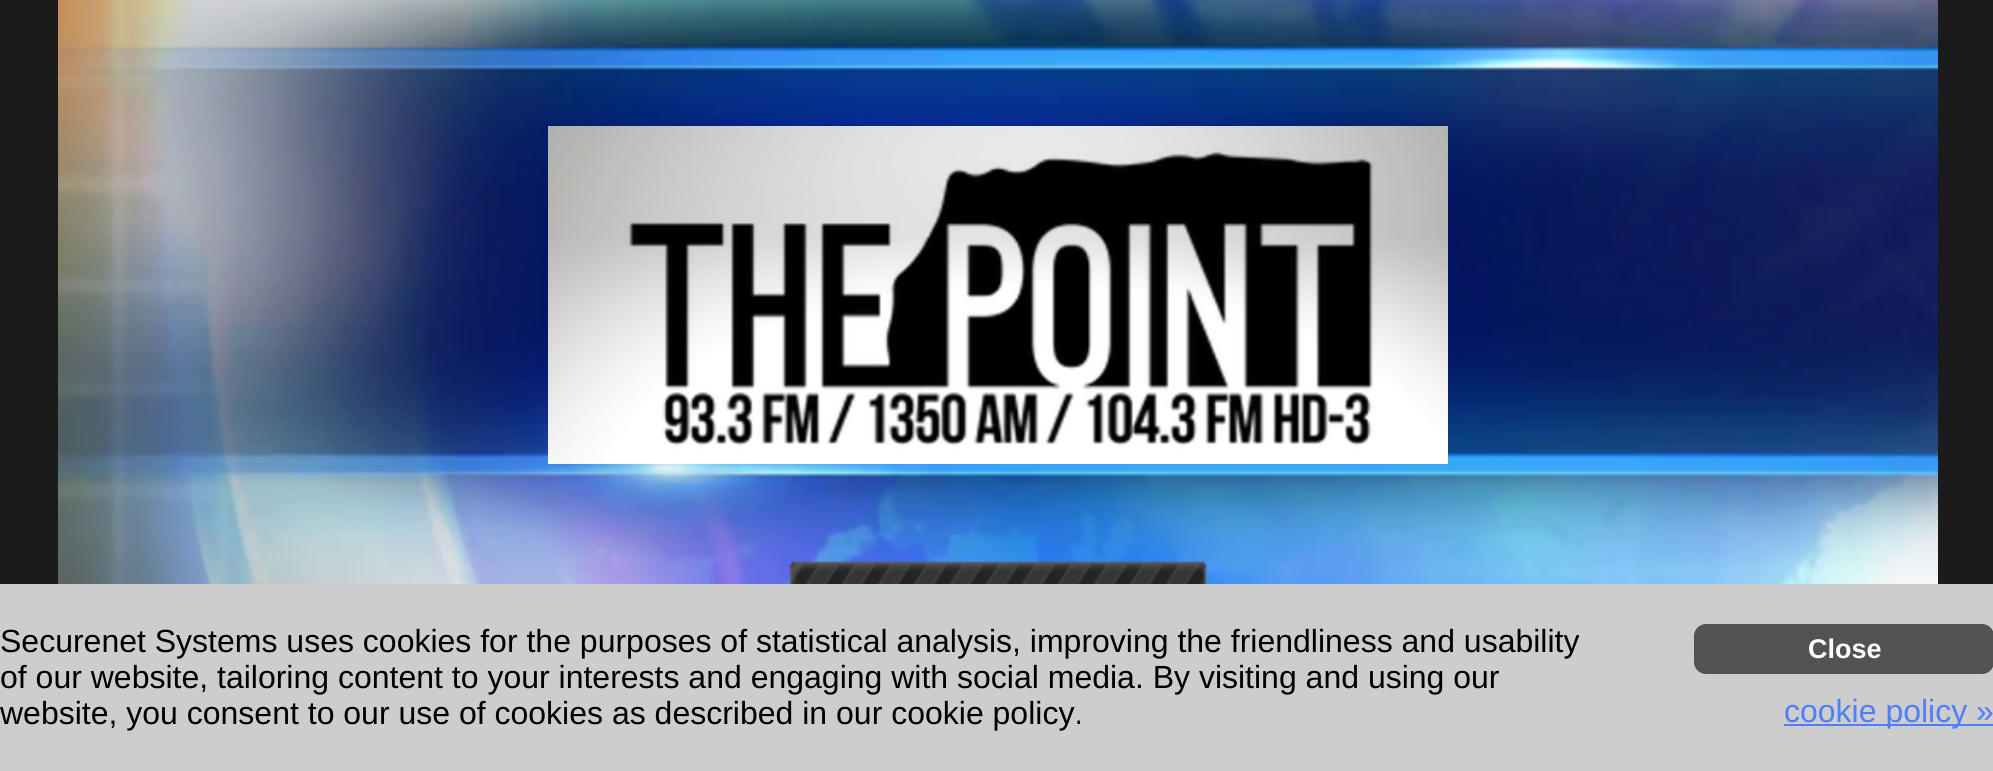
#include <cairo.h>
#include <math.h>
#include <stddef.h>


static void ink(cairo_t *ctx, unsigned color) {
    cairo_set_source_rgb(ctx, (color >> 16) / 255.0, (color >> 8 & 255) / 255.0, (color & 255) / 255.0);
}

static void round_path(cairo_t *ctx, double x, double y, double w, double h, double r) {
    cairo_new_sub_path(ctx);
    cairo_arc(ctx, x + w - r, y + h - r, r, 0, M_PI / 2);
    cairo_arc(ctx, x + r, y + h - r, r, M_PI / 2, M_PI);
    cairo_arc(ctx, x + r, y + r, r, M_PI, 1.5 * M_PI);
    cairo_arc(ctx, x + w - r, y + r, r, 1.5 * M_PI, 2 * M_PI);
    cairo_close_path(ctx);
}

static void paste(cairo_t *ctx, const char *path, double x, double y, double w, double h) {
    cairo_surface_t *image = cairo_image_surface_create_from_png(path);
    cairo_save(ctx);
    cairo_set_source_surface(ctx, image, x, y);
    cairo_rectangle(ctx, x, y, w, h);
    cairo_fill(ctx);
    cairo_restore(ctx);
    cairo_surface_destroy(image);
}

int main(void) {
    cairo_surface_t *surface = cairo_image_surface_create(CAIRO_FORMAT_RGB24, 1993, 771);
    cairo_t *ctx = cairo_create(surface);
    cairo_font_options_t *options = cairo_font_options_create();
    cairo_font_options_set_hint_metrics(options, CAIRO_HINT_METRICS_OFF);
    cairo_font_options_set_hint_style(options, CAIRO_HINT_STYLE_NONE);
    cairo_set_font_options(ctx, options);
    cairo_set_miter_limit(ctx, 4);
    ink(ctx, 0x1B1B1B);
    cairo_paint(ctx);
    paste(ctx, "media/1.png", 58, 0, 1880, 584);
    paste(ctx, "media/2.png", 548, 126, 900, 338);
    paste(ctx, "media/3.png", 789, 561, 418, 23);
    ink(ctx, 0xCDCDCD);
    cairo_rectangle(ctx, 0, 584, 1993, 187);
    cairo_fill(ctx);
    cairo_select_font_face(ctx, "Liberation Sans", CAIRO_FONT_SLANT_NORMAL, CAIRO_FONT_WEIGHT_NORMAL);
    cairo_set_font_size(ctx, 32);
    ink(ctx, 0x000000);
    cairo_move_to(ctx, 0, 652);
    cairo_show_text(ctx, "Securenet Systems uses cookies for the purposes of statistical analysis, improving the friendliness and usability");
    ink(ctx, 0x525252);
    round_path(ctx, 1694, 624, 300, 50, 12);
    cairo_fill(ctx);
    cairo_select_font_face(ctx, "Liberation Sans", CAIRO_FONT_SLANT_NORMAL, CAIRO_FONT_WEIGHT_BOLD);
    cairo_set_font_size(ctx, 27);
    ink(ctx, 0xFFFFFF);
    cairo_move_to(ctx, 1808, 658);
    cairo_show_text(ctx, "Close");
    ink(ctx, 0x4F7FF7);
    cairo_rectangle(ctx, 1784, 724, 209, 2);
    cairo_fill(ctx);
    cairo_select_font_face(ctx, "Liberation Sans", CAIRO_FONT_SLANT_NORMAL, CAIRO_FONT_WEIGHT_NORMAL);
    cairo_set_font_size(ctx, 32);
    cairo_move_to(ctx, 1784, 722);
    cairo_show_text(ctx, "cookie policy »");
    ink(ctx, 0x000000);
    cairo_move_to(ctx, 0, 688);
    cairo_show_text(ctx, "of our website, tailoring content to your interests and engaging with social media. By visiting and using our");
    cairo_move_to(ctx, 0, 724);
    cairo_show_text(ctx, "website, you consent to our use of cookies as described in our cookie policy.");
    cairo_surface_write_to_png(surface, "image.png");
    cairo_font_options_destroy(options);
    cairo_destroy(ctx);
    cairo_surface_destroy(surface);
    return 0;
}
